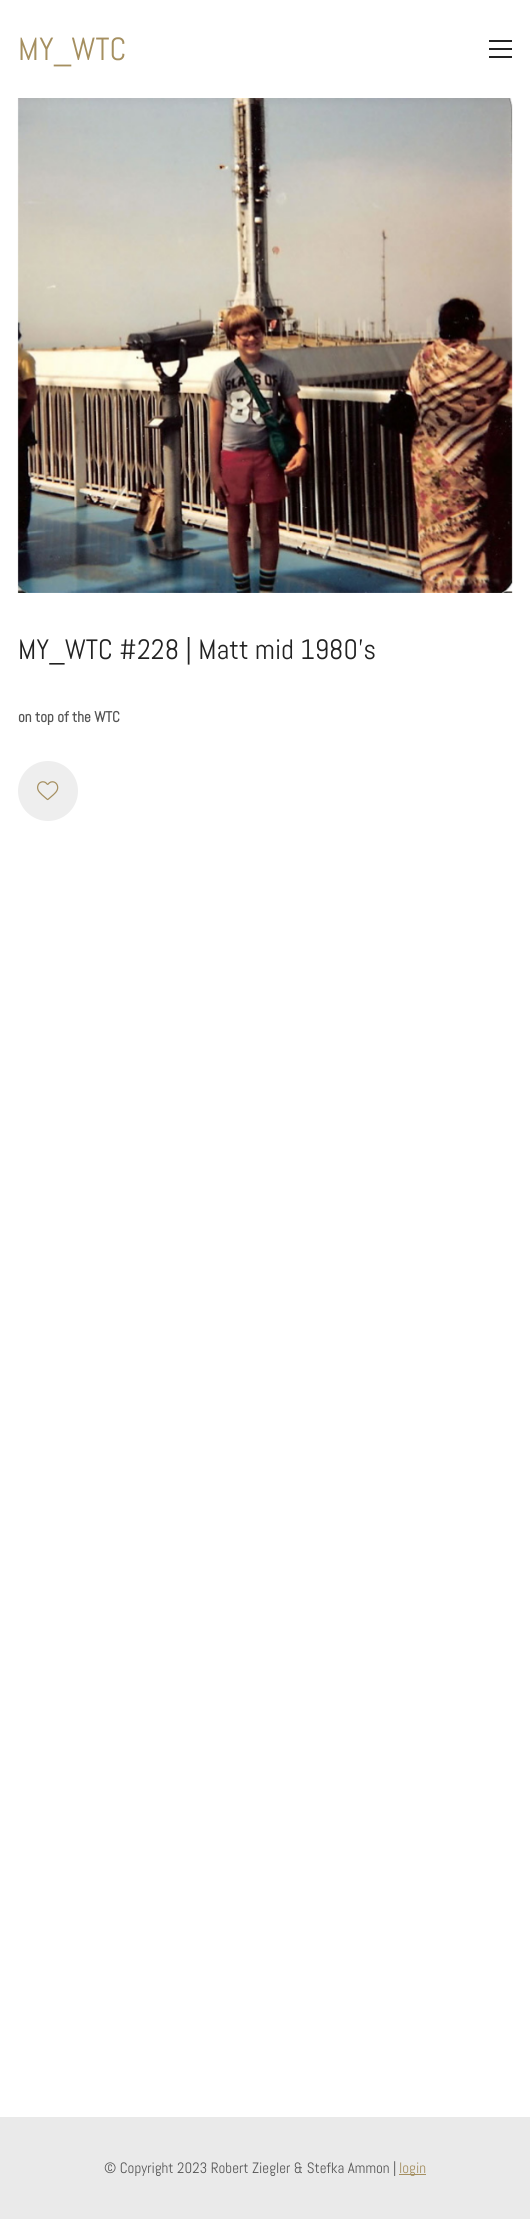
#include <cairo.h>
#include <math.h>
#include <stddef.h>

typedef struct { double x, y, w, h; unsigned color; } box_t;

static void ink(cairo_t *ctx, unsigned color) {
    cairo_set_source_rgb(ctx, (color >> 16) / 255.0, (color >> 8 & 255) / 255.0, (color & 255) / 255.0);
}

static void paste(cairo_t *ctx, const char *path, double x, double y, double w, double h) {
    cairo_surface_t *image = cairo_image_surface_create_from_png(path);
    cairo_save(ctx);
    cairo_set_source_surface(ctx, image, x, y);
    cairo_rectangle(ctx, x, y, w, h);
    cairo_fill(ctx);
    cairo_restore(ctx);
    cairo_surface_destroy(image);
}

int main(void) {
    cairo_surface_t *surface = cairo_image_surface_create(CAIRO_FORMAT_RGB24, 530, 2219);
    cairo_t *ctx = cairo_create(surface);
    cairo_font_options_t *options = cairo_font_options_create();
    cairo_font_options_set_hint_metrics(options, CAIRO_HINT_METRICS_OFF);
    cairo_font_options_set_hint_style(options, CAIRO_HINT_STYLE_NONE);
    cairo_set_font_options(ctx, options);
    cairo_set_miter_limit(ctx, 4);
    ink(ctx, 0xFFFFFF);
    cairo_paint(ctx);
    cairo_select_font_face(ctx, "Abel", CAIRO_FONT_SLANT_NORMAL, CAIRO_FONT_WEIGHT_NORMAL);
    cairo_set_font_size(ctx, 32);
    ink(ctx, 0xA58F60);
    cairo_move_to(ctx, 18, 60);
    cairo_show_text(ctx, "MY_WTC");
    {
        static const box_t items[] = {
            {489, 40, 23, 2, 0x222222},
            {489, 48, 23, 2, 0x222222},
            {489, 56, 23, 2, 0x222222},
        };
        for (size_t i = 0; i < sizeof items / sizeof *items; i++) {
            ink(ctx, items[i].color);
            cairo_rectangle(ctx, items[i].x, items[i].y, items[i].w, items[i].h);
            cairo_fill(ctx);
        }
    }
    paste(ctx, "media/1.png", 17, 98, 496, 495);
    cairo_set_font_size(ctx, 28);
    cairo_move_to(ctx, 18, 659);
    cairo_show_text(ctx, "MY_WTC #228 | Matt mid 1980’s");
    cairo_select_font_face(ctx, "Abel", CAIRO_FONT_SLANT_NORMAL, CAIRO_FONT_WEIGHT_BOLD);
    cairo_set_font_size(ctx, 15);
    ink(ctx, 0x555555);
    cairo_move_to(ctx, 18, 722);
    cairo_show_text(ctx, "on top of the WTC");
    ink(ctx, 0xEEEEEE);
    cairo_new_path(ctx);
    cairo_arc(ctx, 48, 791, 30, 0, 2 * M_PI);
    cairo_fill(ctx);
    paste(ctx, "media/2.png", 37, 781, 22, 20);
    ink(ctx, 0xEAEAEA);
    cairo_rectangle(ctx, 0, 2117, 530, 102);
    cairo_fill(ctx);
    cairo_select_font_face(ctx, "Abel", CAIRO_FONT_SLANT_NORMAL, CAIRO_FONT_WEIGHT_NORMAL);
    ink(ctx, 0x555555);
    cairo_move_to(ctx, 104, 2173);
    cairo_show_text(ctx, "© Copyright 2023 Robert Ziegler & Stefka Ammon |");
    ink(ctx, 0xA58F60);
    cairo_rectangle(ctx, 399, 2174, 27, 1);
    cairo_fill(ctx);
    cairo_move_to(ctx, 399, 2173);
    cairo_show_text(ctx, "login");
    cairo_surface_write_to_png(surface, "image.png");
    cairo_font_options_destroy(options);
    cairo_destroy(ctx);
    cairo_surface_destroy(surface);
    return 0;
}
